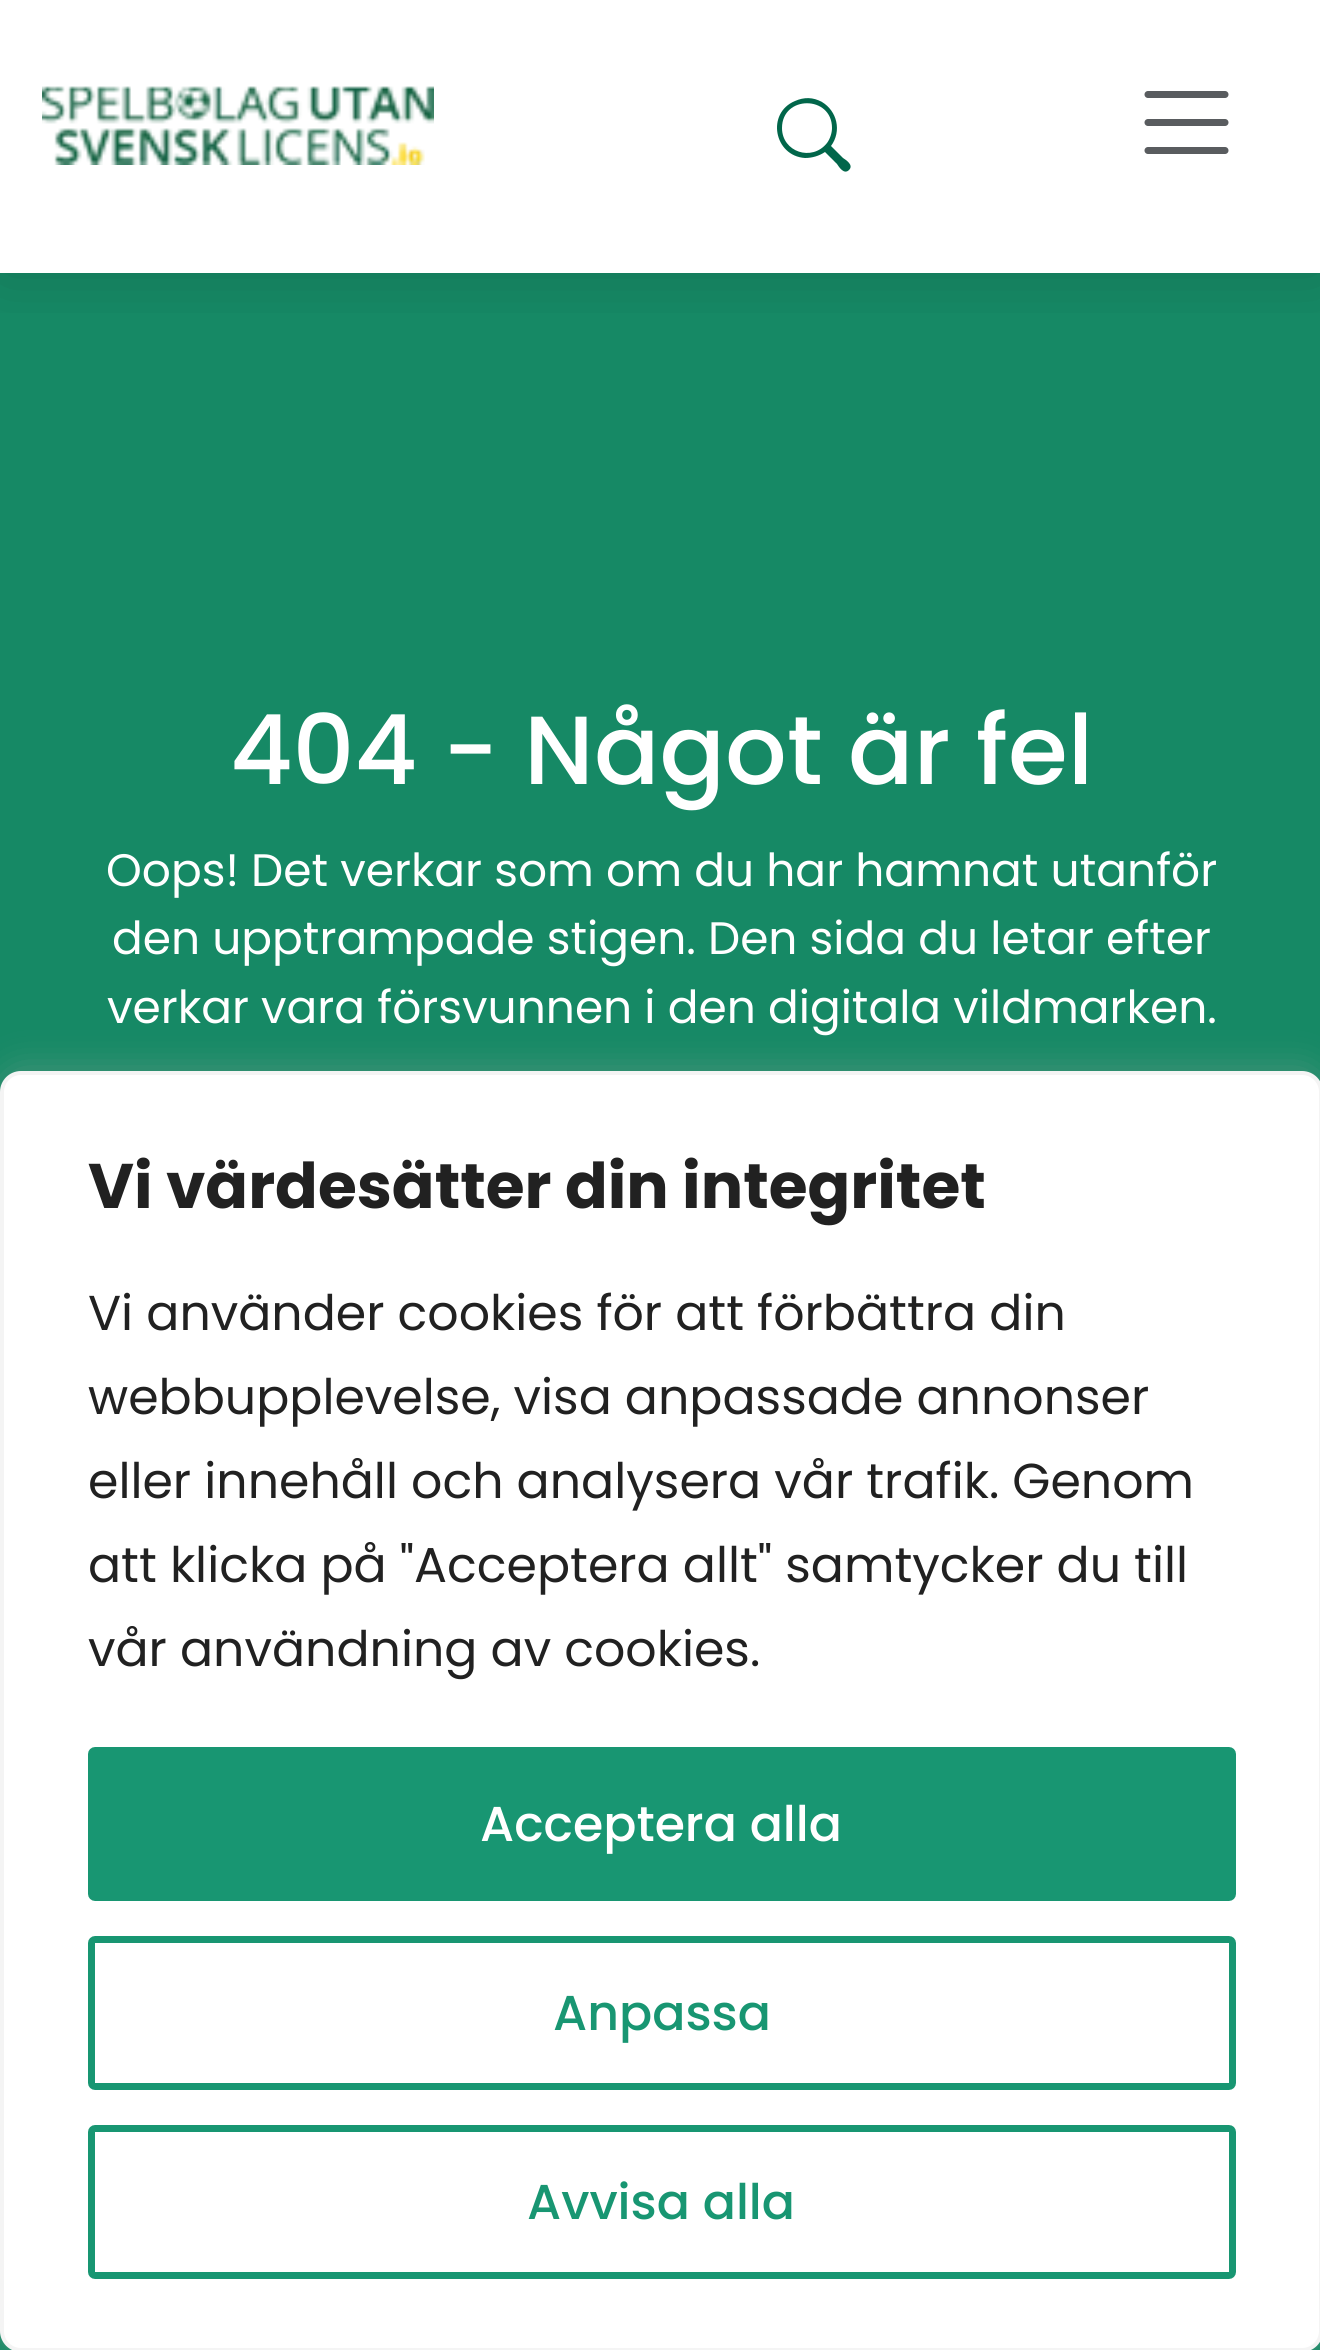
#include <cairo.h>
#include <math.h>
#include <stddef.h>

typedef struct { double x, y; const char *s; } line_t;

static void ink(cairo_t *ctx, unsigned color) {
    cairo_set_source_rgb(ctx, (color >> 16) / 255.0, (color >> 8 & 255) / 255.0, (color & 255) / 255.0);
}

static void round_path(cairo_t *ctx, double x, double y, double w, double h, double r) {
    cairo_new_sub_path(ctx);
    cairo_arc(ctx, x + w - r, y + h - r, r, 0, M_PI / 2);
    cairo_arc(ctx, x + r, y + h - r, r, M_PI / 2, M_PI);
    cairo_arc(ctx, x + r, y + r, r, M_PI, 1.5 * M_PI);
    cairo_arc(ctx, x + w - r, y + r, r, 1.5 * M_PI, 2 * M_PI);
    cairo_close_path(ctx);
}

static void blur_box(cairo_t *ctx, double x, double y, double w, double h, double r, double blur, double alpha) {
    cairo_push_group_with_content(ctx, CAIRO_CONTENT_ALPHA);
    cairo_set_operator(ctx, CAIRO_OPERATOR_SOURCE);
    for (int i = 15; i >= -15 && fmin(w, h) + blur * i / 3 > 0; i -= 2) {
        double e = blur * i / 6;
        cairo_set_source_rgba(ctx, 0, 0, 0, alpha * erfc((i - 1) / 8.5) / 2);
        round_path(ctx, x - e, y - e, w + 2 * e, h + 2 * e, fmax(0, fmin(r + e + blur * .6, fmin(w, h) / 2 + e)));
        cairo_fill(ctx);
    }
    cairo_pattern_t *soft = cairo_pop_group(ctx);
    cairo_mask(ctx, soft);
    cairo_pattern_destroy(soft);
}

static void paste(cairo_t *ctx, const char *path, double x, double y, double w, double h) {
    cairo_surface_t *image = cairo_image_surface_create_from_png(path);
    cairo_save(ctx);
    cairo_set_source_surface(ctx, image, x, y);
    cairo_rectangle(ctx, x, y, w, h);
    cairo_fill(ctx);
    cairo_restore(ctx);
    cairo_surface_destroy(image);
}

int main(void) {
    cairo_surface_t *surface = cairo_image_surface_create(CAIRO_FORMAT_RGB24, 1320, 2350);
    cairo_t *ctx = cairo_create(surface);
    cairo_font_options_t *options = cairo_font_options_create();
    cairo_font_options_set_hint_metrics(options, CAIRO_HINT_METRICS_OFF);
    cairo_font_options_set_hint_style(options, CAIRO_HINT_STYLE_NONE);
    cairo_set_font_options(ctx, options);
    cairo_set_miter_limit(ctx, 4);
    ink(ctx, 0xFFFFFF);
    cairo_paint(ctx);
    ink(ctx, 0x168965);
    cairo_rectangle(ctx, 0, 273, 1320, 819);
    cairo_fill(ctx);
    cairo_save(ctx);
    cairo_rectangle(ctx, 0, 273, 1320, 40);
    cairo_clip(ctx);
    ink(ctx, 0x000000);
    blur_box(ctx, 0, 0, 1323, 273, 0, 35, 0.16);
    cairo_restore(ctx);
    paste(ctx, "media/1.png", 42, 86, 392, 79);
    ink(ctx, 0x01664A);
    cairo_new_path(ctx);
    cairo_move_to(ctx, 831, 146);
    cairo_curve_to(ctx, 842, 131, 837, 111, 822, 102);
    cairo_curve_to(ctx, 813, 97, 804, 97, 795, 101);
    cairo_curve_to(ctx, 766, 113, 774, 156, 805, 158);
    cairo_curve_to(ctx, 812, 158, 819, 156, 825, 152);
    cairo_line_to(ctx, 837, 164);
    cairo_curve_to(ctx, 839, 167, 844, 175, 849, 170);
    cairo_curve_to(ctx, 854, 165, 846, 160, 843, 158);
    cairo_close_path(ctx);
    cairo_move_to(ctx, 832, 128);
    cairo_curve_to(ctx, 832, 133, 830, 139, 827, 143);
    cairo_curve_to(ctx, 812, 162, 782, 152, 782, 128);
    cairo_curve_to(ctx, 782, 95, 832, 95, 832, 128);
    cairo_close_path(ctx);
    cairo_fill(ctx);
    cairo_new_path(ctx);
    cairo_move_to(ctx, 1148, 94.5);
    cairo_line_to(ctx, 1225, 94.5);
    cairo_move_to(ctx, 1148, 122.5);
    cairo_line_to(ctx, 1225, 122.5);
    cairo_move_to(ctx, 1148, 150.5);
    cairo_line_to(ctx, 1225, 150.5);
    ink(ctx, 0x595C5F);
    cairo_set_line_width(ctx, 7);
    cairo_set_line_cap(ctx, CAIRO_LINE_CAP_ROUND);
    cairo_stroke(ctx);
    cairo_select_font_face(ctx, "Poppins Medium", CAIRO_FONT_SLANT_NORMAL, CAIRO_FONT_WEIGHT_NORMAL);
    cairo_set_font_size(ctx, 96.75);
    ink(ctx, 0xFFFFFF);
    cairo_move_to(ctx, 230, 784);
    cairo_show_text(ctx, "404 - Något är fel");
    cairo_select_font_face(ctx, "Poppins", CAIRO_FONT_SLANT_NORMAL, CAIRO_FONT_WEIGHT_NORMAL);
    cairo_set_font_size(ctx, 45.5);
    {
        static const line_t items[] = {
            {106, 886, "Oops! Det verkar som om du har hamnat utanför"},
            {112, 954, "den upptrampade stigen. Den sida du letar efter"},
            {107, 1023, "verkar vara försvunnen i den digitala vildmarken."},
        };
        for (size_t i = 0; i < sizeof items / sizeof *items; i++) {
            cairo_move_to(ctx, items[i].x, items[i].y);
            cairo_show_text(ctx, items[i].s);
        }
    }
    ink(ctx, 0x168965);
    cairo_rectangle(ctx, 0, 2331, 1320, 19);
    cairo_fill(ctx);
    ink(ctx, 0xACABAB);
    blur_box(ctx, 0, 1068, 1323, 1281, 21, 17.5, 0.3);
    ink(ctx, 0xFFFFFF);
    round_path(ctx, 2, 1073, 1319, 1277, 19);
    cairo_fill_preserve(ctx);
    ink(ctx, 0xF4F4F4);
    cairo_set_line_width(ctx, 4);
    cairo_set_line_cap(ctx, CAIRO_LINE_CAP_BUTT);
    cairo_stroke(ctx);
    cairo_select_font_face(ctx, "Poppins", CAIRO_FONT_SLANT_NORMAL, CAIRO_FONT_WEIGHT_BOLD);
    cairo_set_font_size(ctx, 63);
    ink(ctx, 0x212121);
    cairo_move_to(ctx, 88, 1208);
    cairo_show_text(ctx, "Vi värdesätter din integritet");
    cairo_select_font_face(ctx, "Poppins", CAIRO_FONT_SLANT_NORMAL, CAIRO_FONT_WEIGHT_NORMAL);
    cairo_set_font_size(ctx, 49);
    {
        static const line_t items[] = {
            {88, 1330, "Vi använder cookies för att förbättra din"},
            {88, 1414, "webbupplevelse, visa anpassade annonser"},
            {88, 1498, "eller innehåll och analysera vår trafik. Genom"},
            {88, 1582, "att klicka på \"Acceptera allt\" samtycker du till"},
            {88, 1666, "vår användning av cookies."},
        };
        for (size_t i = 0; i < sizeof items / sizeof *items; i++) {
            cairo_move_to(ctx, items[i].x, items[i].y);
            cairo_show_text(ctx, items[i].s);
        }
    }
    ink(ctx, 0x189672);
    round_path(ctx, 91.5, 1750.5, 1141, 147, 3.5);
    cairo_fill_preserve(ctx);
    cairo_set_line_width(ctx, 7);
    cairo_stroke(ctx);
    cairo_select_font_face(ctx, "Poppins Medium", CAIRO_FONT_SLANT_NORMAL, CAIRO_FONT_WEIGHT_NORMAL);
    ink(ctx, 0xFFFFFF);
    cairo_move_to(ctx, 480, 1841);
    cairo_show_text(ctx, "Acceptera alla");
    round_path(ctx, 91.5, 1939.5, 1141, 147, 3.5);
    ink(ctx, 0x189672);
    cairo_stroke(ctx);
    cairo_move_to(ctx, 553, 2030);
    cairo_show_text(ctx, "Anpassa");
    round_path(ctx, 91.5, 2128.5, 1141, 147, 3.5);
    cairo_stroke(ctx);
    cairo_move_to(ctx, 527, 2219);
    cairo_show_text(ctx, "Avvisa alla");
    cairo_surface_write_to_png(surface, "image.png");
    cairo_font_options_destroy(options);
    cairo_destroy(ctx);
    cairo_surface_destroy(surface);
    return 0;
}
